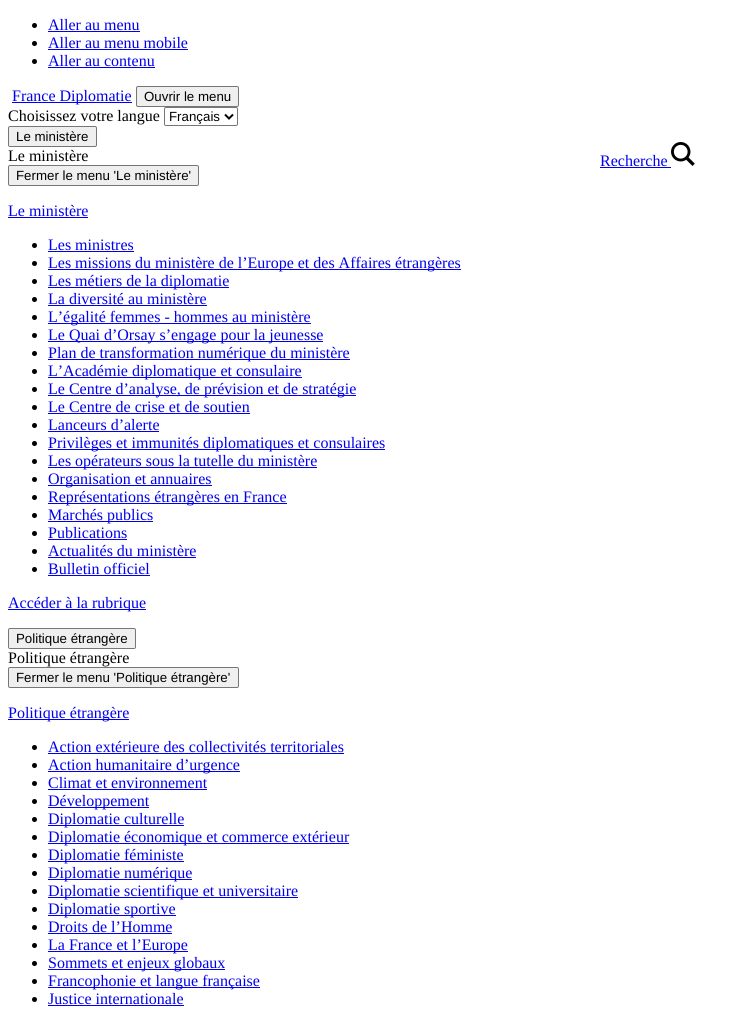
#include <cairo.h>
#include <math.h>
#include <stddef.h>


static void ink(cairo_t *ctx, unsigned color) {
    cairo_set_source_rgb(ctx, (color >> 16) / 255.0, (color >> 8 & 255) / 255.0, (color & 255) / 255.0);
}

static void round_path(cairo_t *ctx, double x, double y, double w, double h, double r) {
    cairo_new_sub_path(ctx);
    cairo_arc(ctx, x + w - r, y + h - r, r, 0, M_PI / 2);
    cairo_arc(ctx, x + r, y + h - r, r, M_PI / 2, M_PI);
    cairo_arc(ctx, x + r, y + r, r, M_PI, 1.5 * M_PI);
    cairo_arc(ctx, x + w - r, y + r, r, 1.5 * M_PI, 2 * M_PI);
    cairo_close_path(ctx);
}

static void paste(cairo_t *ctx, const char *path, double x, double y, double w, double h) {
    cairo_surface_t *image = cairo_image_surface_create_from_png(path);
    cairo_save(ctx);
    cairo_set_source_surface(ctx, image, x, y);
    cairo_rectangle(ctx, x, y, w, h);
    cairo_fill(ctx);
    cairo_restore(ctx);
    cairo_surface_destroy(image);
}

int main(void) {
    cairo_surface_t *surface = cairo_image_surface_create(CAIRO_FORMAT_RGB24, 734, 1014);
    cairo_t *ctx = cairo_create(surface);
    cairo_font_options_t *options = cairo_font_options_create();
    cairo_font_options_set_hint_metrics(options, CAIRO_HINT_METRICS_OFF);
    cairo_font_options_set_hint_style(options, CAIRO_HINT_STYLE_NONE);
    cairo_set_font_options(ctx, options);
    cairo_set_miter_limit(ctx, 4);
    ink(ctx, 0xFFFFFF);
    cairo_paint(ctx);
    ink(ctx, 0x000000);
    cairo_arc(ctx, 34.5, 25.5, 2.5, 0, 2 * M_PI);
    cairo_fill(ctx);
    cairo_select_font_face(ctx, "Liberation Serif", CAIRO_FONT_SLANT_NORMAL, CAIRO_FONT_WEIGHT_NORMAL);
    cairo_set_font_size(ctx, 16);
    ink(ctx, 0x0000EE);
    cairo_move_to(ctx, 48, 30);
    cairo_show_text(ctx, "Aller au menu");
    cairo_rectangle(ctx, 48, 31, 92, 1);
    cairo_fill(ctx);
    ink(ctx, 0x000000);
    cairo_arc(ctx, 34.5, 43.5, 2.5, 0, 2 * M_PI);
    cairo_fill(ctx);
    ink(ctx, 0x0000EE);
    cairo_move_to(ctx, 48, 48);
    cairo_show_text(ctx, "Aller au menu mobile");
    cairo_rectangle(ctx, 48, 49, 140, 1);
    cairo_fill(ctx);
    ink(ctx, 0x000000);
    cairo_arc(ctx, 34.5, 61.5, 2.5, 0, 2 * M_PI);
    cairo_fill(ctx);
    ink(ctx, 0x0000EE);
    cairo_move_to(ctx, 48, 66);
    cairo_show_text(ctx, "Aller au contenu");
    cairo_rectangle(ctx, 48, 67, 107, 1);
    cairo_fill(ctx);
    cairo_rectangle(ctx, 12, 102, 120, 1);
    cairo_fill(ctx);
    cairo_move_to(ctx, 12, 101);
    cairo_show_text(ctx, "France Diplomatie");
    ink(ctx, 0xEFEFEF);
    round_path(ctx, 136.5, 86.5, 102, 20, 1.5);
    cairo_fill_preserve(ctx);
    ink(ctx, 0x767676);
    cairo_set_line_width(ctx, 1);
    cairo_stroke(ctx);
    cairo_select_font_face(ctx, "Liberation Sans", CAIRO_FONT_SLANT_NORMAL, CAIRO_FONT_WEIGHT_NORMAL);
    cairo_set_font_size(ctx, 13.3);
    ink(ctx, 0x000000);
    cairo_move_to(ctx, 144, 101);
    cairo_show_text(ctx, "Ouvrir le menu");
    cairo_select_font_face(ctx, "Liberation Serif", CAIRO_FONT_SLANT_NORMAL, CAIRO_FONT_WEIGHT_NORMAL);
    cairo_set_font_size(ctx, 16);
    cairo_move_to(ctx, 8, 121);
    cairo_show_text(ctx, "Choisissez votre langue");
    round_path(ctx, 164.5, 107.5, 73, 18, 1.5);
    ink(ctx, 0x767676);
    cairo_stroke(ctx);
    cairo_new_path(ctx);
    cairo_move_to(ctx, 225, 114.5);
    cairo_line_to(ctx, 229, 118.5);
    cairo_line_to(ctx, 233, 114.5);
    ink(ctx, 0x000000);
    cairo_set_line_width(ctx, 2);
    cairo_stroke(ctx);
    cairo_select_font_face(ctx, "Liberation Sans", CAIRO_FONT_SLANT_NORMAL, CAIRO_FONT_WEIGHT_NORMAL);
    cairo_set_font_size(ctx, 13.3);
    cairo_move_to(ctx, 169, 121);
    cairo_show_text(ctx, "Français");
    ink(ctx, 0xEFEFEF);
    round_path(ctx, 8.5, 126.5, 88, 20, 1.5);
    cairo_fill_preserve(ctx);
    ink(ctx, 0x767676);
    cairo_set_line_width(ctx, 1);
    cairo_stroke(ctx);
    ink(ctx, 0x000000);
    cairo_move_to(ctx, 16, 141);
    cairo_show_text(ctx, "Le ministère");
    cairo_select_font_face(ctx, "Liberation Serif", CAIRO_FONT_SLANT_NORMAL, CAIRO_FONT_WEIGHT_NORMAL);
    cairo_set_font_size(ctx, 16);
    cairo_move_to(ctx, 8, 161);
    cairo_show_text(ctx, "Le ministère");
    ink(ctx, 0xEFEFEF);
    round_path(ctx, 8.5, 165.5, 190, 20, 1.5);
    cairo_fill_preserve(ctx);
    ink(ctx, 0x767676);
    cairo_stroke(ctx);
    cairo_select_font_face(ctx, "Liberation Sans", CAIRO_FONT_SLANT_NORMAL, CAIRO_FONT_WEIGHT_NORMAL);
    cairo_set_font_size(ctx, 13.3);
    ink(ctx, 0x000000);
    cairo_move_to(ctx, 16, 180);
    cairo_show_text(ctx, "Fermer le menu 'Le ministère'");
    cairo_select_font_face(ctx, "Liberation Serif", CAIRO_FONT_SLANT_NORMAL, CAIRO_FONT_WEIGHT_NORMAL);
    cairo_set_font_size(ctx, 16);
    ink(ctx, 0x0000EE);
    cairo_move_to(ctx, 8, 216);
    cairo_show_text(ctx, "Le ministère");
    cairo_rectangle(ctx, 8, 217, 80, 1);
    cairo_fill(ctx);
    ink(ctx, 0x000000);
    cairo_arc(ctx, 34.5, 245.5, 2.5, 0, 2 * M_PI);
    cairo_fill(ctx);
    ink(ctx, 0x0000EE);
    cairo_move_to(ctx, 48, 250);
    cairo_show_text(ctx, "Les ministres");
    cairo_rectangle(ctx, 48, 251, 86, 1);
    cairo_fill(ctx);
    ink(ctx, 0x000000);
    cairo_arc(ctx, 34.5, 263.5, 2.5, 0, 2 * M_PI);
    cairo_fill(ctx);
    ink(ctx, 0x0000EE);
    cairo_rectangle(ctx, 48, 269, 413, 1);
    cairo_fill(ctx);
    cairo_move_to(ctx, 48, 268);
    cairo_show_text(ctx, "Les missions du ministère de l’Europe et des Affaires étrangères");
    ink(ctx, 0x000000);
    cairo_new_path(ctx);
    cairo_arc(ctx, 34.5, 281.5, 2.5, 0, 2 * M_PI);
    cairo_fill(ctx);
    ink(ctx, 0x0000EE);
    cairo_rectangle(ctx, 48, 287, 181, 1);
    cairo_fill(ctx);
    cairo_move_to(ctx, 48, 286);
    cairo_show_text(ctx, "Les métiers de la diplomatie");
    ink(ctx, 0x000000);
    cairo_new_path(ctx);
    cairo_arc(ctx, 34.5, 299.5, 2.5, 0, 2 * M_PI);
    cairo_fill(ctx);
    ink(ctx, 0x0000EE);
    cairo_move_to(ctx, 48, 304);
    cairo_show_text(ctx, "La diversité au ministère");
    cairo_rectangle(ctx, 48, 305, 159, 1);
    cairo_fill(ctx);
    ink(ctx, 0x000000);
    cairo_arc(ctx, 34.5, 317.5, 2.5, 0, 2 * M_PI);
    cairo_fill(ctx);
    ink(ctx, 0x0000EE);
    cairo_rectangle(ctx, 48, 323, 263, 1);
    cairo_fill(ctx);
    cairo_move_to(ctx, 48, 322);
    cairo_show_text(ctx, "L’égalité femmes - hommes au ministère");
    ink(ctx, 0x000000);
    cairo_new_path(ctx);
    cairo_arc(ctx, 34.5, 335.5, 2.5, 0, 2 * M_PI);
    cairo_fill(ctx);
    ink(ctx, 0x0000EE);
    cairo_rectangle(ctx, 48, 341, 275, 1);
    cairo_fill(ctx);
    cairo_move_to(ctx, 48, 340);
    cairo_show_text(ctx, "Le Quai d’Orsay s’engage pour la jeunesse");
    ink(ctx, 0x000000);
    cairo_new_path(ctx);
    cairo_arc(ctx, 34.5, 353.5, 2.5, 0, 2 * M_PI);
    cairo_fill(ctx);
    ink(ctx, 0x0000EE);
    cairo_rectangle(ctx, 48, 359, 302, 1);
    cairo_fill(ctx);
    cairo_move_to(ctx, 48, 358);
    cairo_show_text(ctx, "Plan de transformation numérique du ministère");
    ink(ctx, 0x000000);
    cairo_new_path(ctx);
    cairo_arc(ctx, 34.5, 371.5, 2.5, 0, 2 * M_PI);
    cairo_fill(ctx);
    ink(ctx, 0x0000EE);
    cairo_rectangle(ctx, 48, 377, 254, 1);
    cairo_fill(ctx);
    cairo_move_to(ctx, 48, 376);
    cairo_show_text(ctx, "L’Académie diplomatique et consulaire");
    ink(ctx, 0x000000);
    cairo_new_path(ctx);
    cairo_arc(ctx, 34.5, 389.5, 2.5, 0, 2 * M_PI);
    cairo_fill(ctx);
    ink(ctx, 0x0000EE);
    cairo_rectangle(ctx, 48, 395, 308, 1);
    cairo_fill(ctx);
    cairo_move_to(ctx, 48, 394);
    cairo_show_text(ctx, "Le Centre d’analyse, de prévision et de stratégie");
    ink(ctx, 0x000000);
    cairo_new_path(ctx);
    cairo_arc(ctx, 34.5, 407.5, 2.5, 0, 2 * M_PI);
    cairo_fill(ctx);
    ink(ctx, 0x0000EE);
    cairo_move_to(ctx, 48, 412);
    cairo_show_text(ctx, "Le Centre de crise et de soutien");
    cairo_rectangle(ctx, 48, 413, 202, 1);
    cairo_fill(ctx);
    ink(ctx, 0x000000);
    cairo_arc(ctx, 34.5, 425.5, 2.5, 0, 2 * M_PI);
    cairo_fill(ctx);
    ink(ctx, 0x0000EE);
    cairo_move_to(ctx, 48, 430);
    cairo_show_text(ctx, "Lanceurs d’alerte");
    cairo_rectangle(ctx, 48, 431, 111, 1);
    cairo_fill(ctx);
    ink(ctx, 0x000000);
    cairo_arc(ctx, 34.5, 443.5, 2.5, 0, 2 * M_PI);
    cairo_fill(ctx);
    ink(ctx, 0x0000EE);
    cairo_rectangle(ctx, 48, 449, 337, 1);
    cairo_fill(ctx);
    cairo_move_to(ctx, 48, 448);
    cairo_show_text(ctx, "Privilèges et immunités diplomatiques et consulaires");
    ink(ctx, 0x000000);
    cairo_new_path(ctx);
    cairo_arc(ctx, 34.5, 461.5, 2.5, 0, 2 * M_PI);
    cairo_fill(ctx);
    ink(ctx, 0x0000EE);
    cairo_rectangle(ctx, 48, 467, 269, 1);
    cairo_fill(ctx);
    cairo_move_to(ctx, 48, 466);
    cairo_show_text(ctx, "Les opérateurs sous la tutelle du ministère");
    ink(ctx, 0x000000);
    cairo_new_path(ctx);
    cairo_arc(ctx, 34.5, 479.5, 2.5, 0, 2 * M_PI);
    cairo_fill(ctx);
    ink(ctx, 0x0000EE);
    cairo_rectangle(ctx, 48, 485, 164, 1);
    cairo_fill(ctx);
    cairo_move_to(ctx, 48, 484);
    cairo_show_text(ctx, "Organisation et annuaires");
    ink(ctx, 0x000000);
    cairo_new_path(ctx);
    cairo_arc(ctx, 34.5, 497.5, 2.5, 0, 2 * M_PI);
    cairo_fill(ctx);
    ink(ctx, 0x0000EE);
    cairo_rectangle(ctx, 48, 503, 239, 1);
    cairo_fill(ctx);
    cairo_move_to(ctx, 48, 502);
    cairo_show_text(ctx, "Représentations étrangères en France");
    ink(ctx, 0x000000);
    cairo_new_path(ctx);
    cairo_arc(ctx, 34.5, 515.5, 2.5, 0, 2 * M_PI);
    cairo_fill(ctx);
    ink(ctx, 0x0000EE);
    cairo_rectangle(ctx, 48, 521, 105, 1);
    cairo_fill(ctx);
    cairo_move_to(ctx, 48, 520);
    cairo_show_text(ctx, "Marchés publics");
    ink(ctx, 0x000000);
    cairo_new_path(ctx);
    cairo_arc(ctx, 34.5, 533.5, 2.5, 0, 2 * M_PI);
    cairo_fill(ctx);
    ink(ctx, 0x0000EE);
    cairo_move_to(ctx, 48, 538);
    cairo_show_text(ctx, "Publications");
    cairo_rectangle(ctx, 48, 539, 79, 1);
    cairo_fill(ctx);
    ink(ctx, 0x000000);
    cairo_arc(ctx, 34.5, 551.5, 2.5, 0, 2 * M_PI);
    cairo_fill(ctx);
    ink(ctx, 0x0000EE);
    cairo_move_to(ctx, 48, 556);
    cairo_show_text(ctx, "Actualités du ministère");
    cairo_rectangle(ctx, 48, 557, 148, 1);
    cairo_fill(ctx);
    ink(ctx, 0x000000);
    cairo_arc(ctx, 34.5, 569.5, 2.5, 0, 2 * M_PI);
    cairo_fill(ctx);
    ink(ctx, 0x0000EE);
    cairo_move_to(ctx, 48, 574);
    cairo_show_text(ctx, "Bulletin officiel");
    cairo_rectangle(ctx, 48, 575, 102, 1);
    cairo_fill(ctx);
    cairo_rectangle(ctx, 8, 609, 138, 1);
    cairo_fill(ctx);
    cairo_move_to(ctx, 8, 608);
    cairo_show_text(ctx, "Accéder à la rubrique");
    ink(ctx, 0xEFEFEF);
    round_path(ctx, 8.5, 628.5, 127, 20, 1.5);
    cairo_fill_preserve(ctx);
    ink(ctx, 0x767676);
    cairo_stroke(ctx);
    cairo_select_font_face(ctx, "Liberation Sans", CAIRO_FONT_SLANT_NORMAL, CAIRO_FONT_WEIGHT_NORMAL);
    cairo_set_font_size(ctx, 13.3);
    ink(ctx, 0x000000);
    cairo_move_to(ctx, 16, 643);
    cairo_show_text(ctx, "Politique étrangère");
    cairo_select_font_face(ctx, "Liberation Serif", CAIRO_FONT_SLANT_NORMAL, CAIRO_FONT_WEIGHT_NORMAL);
    cairo_set_font_size(ctx, 16);
    cairo_move_to(ctx, 8, 663);
    cairo_show_text(ctx, "Politique étrangère");
    ink(ctx, 0xEFEFEF);
    round_path(ctx, 8.5, 667.5, 230, 20, 1.5);
    cairo_fill_preserve(ctx);
    ink(ctx, 0x767676);
    cairo_stroke(ctx);
    cairo_select_font_face(ctx, "Liberation Sans", CAIRO_FONT_SLANT_NORMAL, CAIRO_FONT_WEIGHT_NORMAL);
    cairo_set_font_size(ctx, 13.3);
    ink(ctx, 0x000000);
    cairo_move_to(ctx, 16, 682);
    cairo_show_text(ctx, "Fermer le menu 'Politique étrangère'");
    ink(ctx, 0x0000EE);
    cairo_rectangle(ctx, 8, 719, 121, 1);
    cairo_fill(ctx);
    cairo_select_font_face(ctx, "Liberation Serif", CAIRO_FONT_SLANT_NORMAL, CAIRO_FONT_WEIGHT_NORMAL);
    cairo_set_font_size(ctx, 16);
    cairo_move_to(ctx, 8, 718);
    cairo_show_text(ctx, "Politique étrangère");
    ink(ctx, 0x000000);
    cairo_new_path(ctx);
    cairo_arc(ctx, 34.5, 747.5, 2.5, 0, 2 * M_PI);
    cairo_fill(ctx);
    ink(ctx, 0x0000EE);
    cairo_move_to(ctx, 48, 752);
    cairo_show_text(ctx, "Action extérieure des collectivités territoriales");
    cairo_rectangle(ctx, 48, 753, 296, 1);
    cairo_fill(ctx);
    ink(ctx, 0x000000);
    cairo_arc(ctx, 34.5, 765.5, 2.5, 0, 2 * M_PI);
    cairo_fill(ctx);
    ink(ctx, 0x0000EE);
    cairo_rectangle(ctx, 48, 771, 192, 1);
    cairo_fill(ctx);
    cairo_move_to(ctx, 48, 770);
    cairo_show_text(ctx, "Action humanitaire d’urgence");
    ink(ctx, 0x000000);
    cairo_new_path(ctx);
    cairo_arc(ctx, 34.5, 783.5, 2.5, 0, 2 * M_PI);
    cairo_fill(ctx);
    ink(ctx, 0x0000EE);
    cairo_move_to(ctx, 48, 788);
    cairo_show_text(ctx, "Climat et environnement");
    cairo_rectangle(ctx, 48, 789, 159, 1);
    cairo_fill(ctx);
    ink(ctx, 0x000000);
    cairo_arc(ctx, 34.5, 801.5, 2.5, 0, 2 * M_PI);
    cairo_fill(ctx);
    ink(ctx, 0x0000EE);
    cairo_rectangle(ctx, 48, 807, 101, 1);
    cairo_fill(ctx);
    cairo_move_to(ctx, 48, 806);
    cairo_show_text(ctx, "Développement");
    ink(ctx, 0x000000);
    cairo_new_path(ctx);
    cairo_arc(ctx, 34.5, 819.5, 2.5, 0, 2 * M_PI);
    cairo_fill(ctx);
    ink(ctx, 0x0000EE);
    cairo_rectangle(ctx, 48, 825, 136, 1);
    cairo_fill(ctx);
    cairo_move_to(ctx, 48, 824);
    cairo_show_text(ctx, "Diplomatie culturelle");
    ink(ctx, 0x000000);
    cairo_new_path(ctx);
    cairo_arc(ctx, 34.5, 837.5, 2.5, 0, 2 * M_PI);
    cairo_fill(ctx);
    ink(ctx, 0x0000EE);
    cairo_rectangle(ctx, 48, 843, 301, 1);
    cairo_fill(ctx);
    cairo_move_to(ctx, 48, 842);
    cairo_show_text(ctx, "Diplomatie économique et commerce extérieur");
    ink(ctx, 0x000000);
    cairo_new_path(ctx);
    cairo_arc(ctx, 34.5, 855.5, 2.5, 0, 2 * M_PI);
    cairo_fill(ctx);
    ink(ctx, 0x0000EE);
    cairo_rectangle(ctx, 48, 861, 136, 1);
    cairo_fill(ctx);
    cairo_move_to(ctx, 48, 860);
    cairo_show_text(ctx, "Diplomatie féministe");
    ink(ctx, 0x000000);
    cairo_new_path(ctx);
    cairo_arc(ctx, 34.5, 873.5, 2.5, 0, 2 * M_PI);
    cairo_fill(ctx);
    ink(ctx, 0x0000EE);
    cairo_rectangle(ctx, 48, 879, 144, 1);
    cairo_fill(ctx);
    cairo_move_to(ctx, 48, 878);
    cairo_show_text(ctx, "Diplomatie numérique");
    ink(ctx, 0x000000);
    cairo_new_path(ctx);
    cairo_arc(ctx, 34.5, 891.5, 2.5, 0, 2 * M_PI);
    cairo_fill(ctx);
    ink(ctx, 0x0000EE);
    cairo_rectangle(ctx, 48, 897, 250, 1);
    cairo_fill(ctx);
    cairo_move_to(ctx, 48, 896);
    cairo_show_text(ctx, "Diplomatie scientifique et universitaire");
    ink(ctx, 0x000000);
    cairo_new_path(ctx);
    cairo_arc(ctx, 34.5, 909.5, 2.5, 0, 2 * M_PI);
    cairo_fill(ctx);
    ink(ctx, 0x0000EE);
    cairo_rectangle(ctx, 48, 915, 128, 1);
    cairo_fill(ctx);
    cairo_move_to(ctx, 48, 914);
    cairo_show_text(ctx, "Diplomatie sportive");
    ink(ctx, 0x000000);
    cairo_new_path(ctx);
    cairo_arc(ctx, 34.5, 927.5, 2.5, 0, 2 * M_PI);
    cairo_fill(ctx);
    ink(ctx, 0x0000EE);
    cairo_move_to(ctx, 48, 932);
    cairo_show_text(ctx, "Droits de l’Homme");
    cairo_rectangle(ctx, 48, 933, 124, 1);
    cairo_fill(ctx);
    ink(ctx, 0x000000);
    cairo_arc(ctx, 34.5, 945.5, 2.5, 0, 2 * M_PI);
    cairo_fill(ctx);
    ink(ctx, 0x0000EE);
    cairo_rectangle(ctx, 48, 951, 140, 1);
    cairo_fill(ctx);
    cairo_move_to(ctx, 48, 950);
    cairo_show_text(ctx, "La France et l’Europe");
    ink(ctx, 0x000000);
    cairo_new_path(ctx);
    cairo_arc(ctx, 34.5, 963.5, 2.5, 0, 2 * M_PI);
    cairo_fill(ctx);
    ink(ctx, 0x0000EE);
    cairo_rectangle(ctx, 48, 969, 177, 1);
    cairo_fill(ctx);
    cairo_move_to(ctx, 48, 968);
    cairo_show_text(ctx, "Sommets et enjeux globaux");
    ink(ctx, 0x000000);
    cairo_new_path(ctx);
    cairo_arc(ctx, 34.5, 981.5, 2.5, 0, 2 * M_PI);
    cairo_fill(ctx);
    ink(ctx, 0x0000EE);
    cairo_rectangle(ctx, 48, 987, 212, 1);
    cairo_fill(ctx);
    cairo_move_to(ctx, 48, 986);
    cairo_show_text(ctx, "Francophonie et langue française");
    ink(ctx, 0x000000);
    cairo_new_path(ctx);
    cairo_arc(ctx, 34.5, 999.5, 2.5, 0, 2 * M_PI);
    cairo_fill(ctx);
    ink(ctx, 0x0000EE);
    cairo_move_to(ctx, 48, 1004);
    cairo_show_text(ctx, "Justice internationale");
    cairo_rectangle(ctx, 48, 1005, 136, 1);
    cairo_fill(ctx);
    cairo_move_to(ctx, 600, 166);
    cairo_show_text(ctx, "Recherche");
    cairo_rectangle(ctx, 600, 167, 71, 1);
    cairo_fill(ctx);
    paste(ctx, "media/1.png", 671, 142, 24, 24);
    cairo_surface_write_to_png(surface, "image.png");
    cairo_font_options_destroy(options);
    cairo_destroy(ctx);
    cairo_surface_destroy(surface);
    return 0;
}
